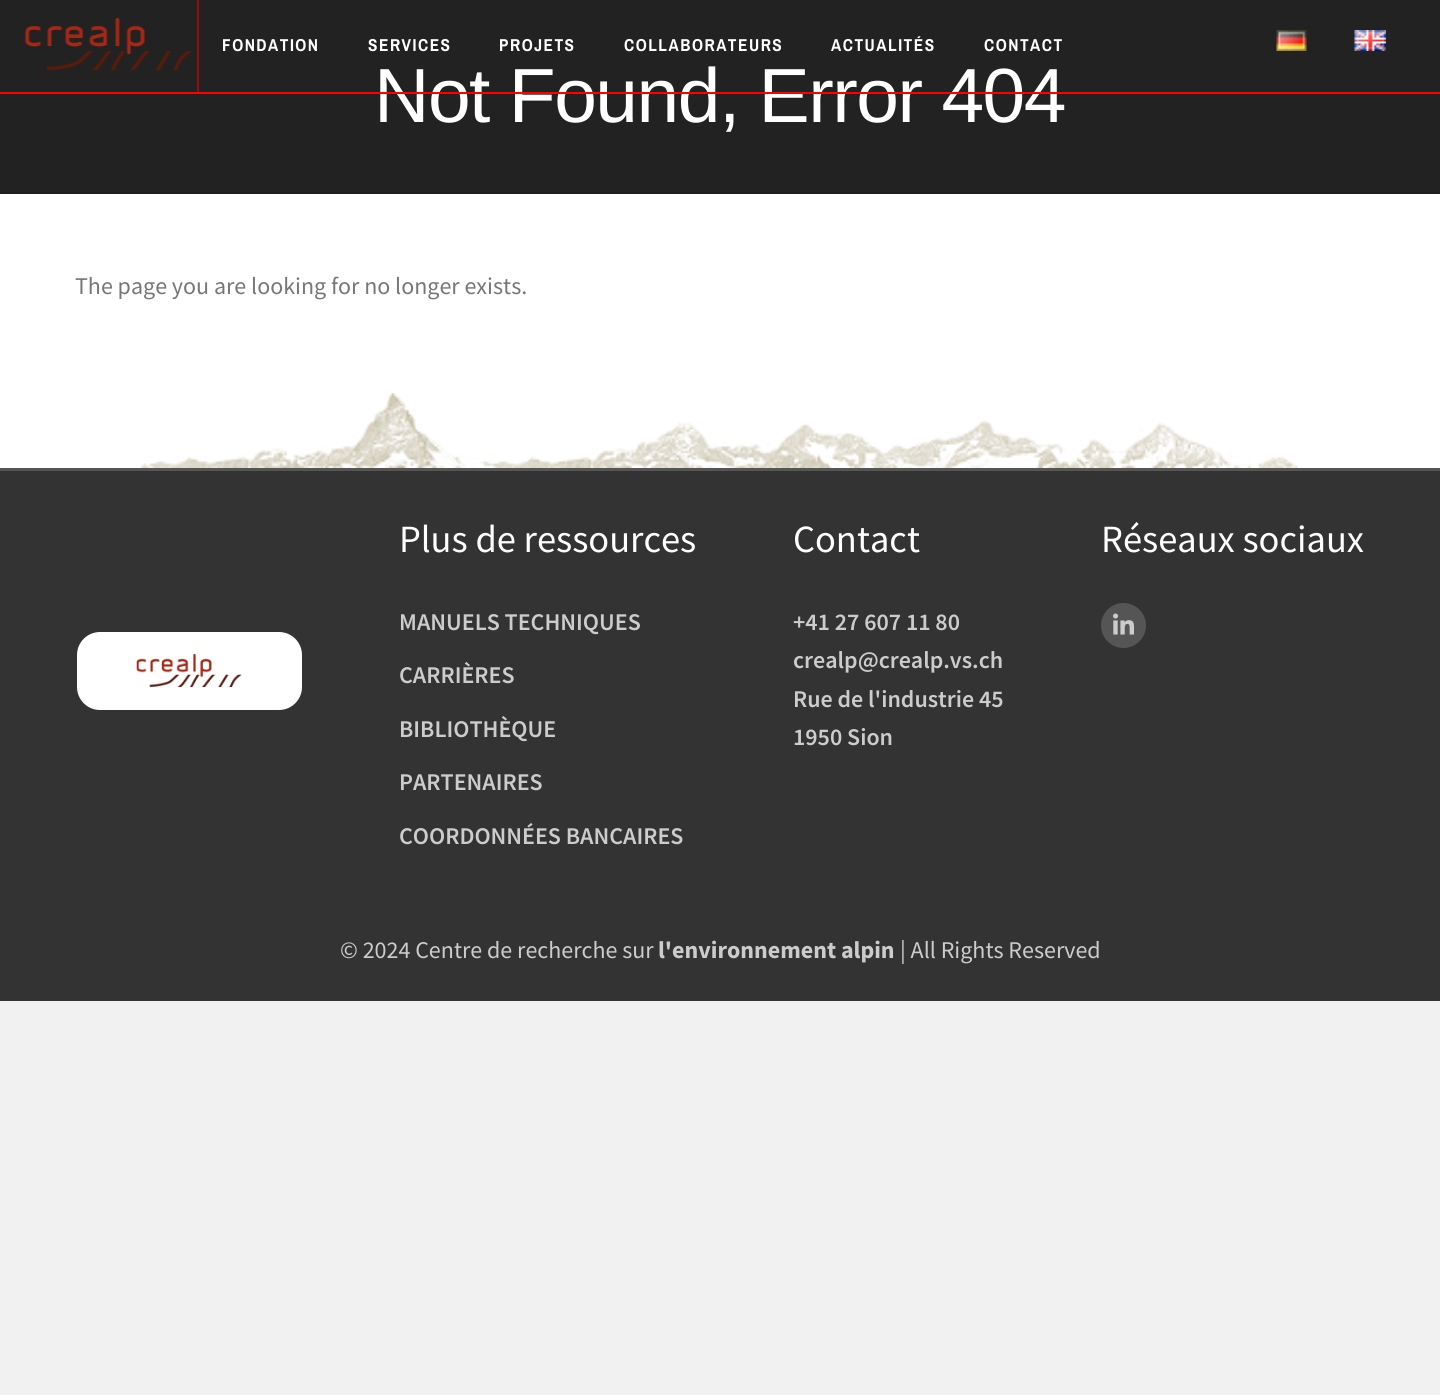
#include <cairo.h>
#include <math.h>
#include <stddef.h>

typedef struct { double x, y; const char *s; } line_t;

static void ink(cairo_t *ctx, unsigned color) {
    cairo_set_source_rgb(ctx, (color >> 16) / 255.0, (color >> 8 & 255) / 255.0, (color & 255) / 255.0);
}

static void write_spaced(cairo_t *ctx, double x, double y, const char *s, double letter, double word) {
    cairo_move_to(ctx, x, y);
    while (*s) {
        char ch[5] = {0};
        int n = 0;
        do ch[n++] = *s++; while ((*s & 0xC0) == 0x80);
        cairo_show_text(ctx, ch);
        cairo_rel_move_to(ctx, letter + word * (*ch == ' '), 0);
    }
}

static void round_path(cairo_t *ctx, double x, double y, double w, double h, double r) {
    cairo_new_sub_path(ctx);
    cairo_arc(ctx, x + w - r, y + h - r, r, 0, M_PI / 2);
    cairo_arc(ctx, x + r, y + h - r, r, M_PI / 2, M_PI);
    cairo_arc(ctx, x + r, y + r, r, M_PI, 1.5 * M_PI);
    cairo_arc(ctx, x + w - r, y + r, r, 1.5 * M_PI, 2 * M_PI);
    cairo_close_path(ctx);
}

static void paste(cairo_t *ctx, const char *path, double x, double y, double w, double h) {
    cairo_surface_t *image = cairo_image_surface_create_from_png(path);
    cairo_save(ctx);
    cairo_set_source_surface(ctx, image, x, y);
    cairo_rectangle(ctx, x, y, w, h);
    cairo_fill(ctx);
    cairo_restore(ctx);
    cairo_surface_destroy(image);
}

int main(void) {
    cairo_surface_t *surface = cairo_image_surface_create(CAIRO_FORMAT_RGB24, 1440, 1395);
    cairo_t *ctx = cairo_create(surface);
    cairo_font_options_t *options = cairo_font_options_create();
    cairo_font_options_set_hint_metrics(options, CAIRO_HINT_METRICS_OFF);
    cairo_font_options_set_hint_style(options, CAIRO_HINT_STYLE_NONE);
    cairo_set_font_options(ctx, options);
    cairo_set_miter_limit(ctx, 4);
    ink(ctx, 0xF1F1F1);
    cairo_paint(ctx);
    ink(ctx, 0xFFFFFF);
    cairo_rectangle(ctx, 0, 194, 1440, 274);
    cairo_fill(ctx);
    ink(ctx, 0x222222);
    cairo_rectangle(ctx, 0, 0, 1440, 192);
    cairo_fill(ctx);
    cairo_select_font_face(ctx, "Arimo", CAIRO_FONT_SLANT_NORMAL, CAIRO_FONT_WEIGHT_NORMAL);
    cairo_set_font_size(ctx, 76.75);
    ink(ctx, 0xFFFFFF);
    write_spaced(ctx, 374, 122, "Not Found, Error 404", -1.5, 0);
    ink(ctx, 0xFF0000);
    cairo_rectangle(ctx, 0, 92, 1440, 2);
    cairo_fill(ctx);
    ink(ctx, 0x970C10);
    cairo_rectangle(ctx, 197, 0, 2, 92);
    cairo_fill(ctx);
    paste(ctx, "media/1.png", 25, 18, 167, 53);
    cairo_select_font_face(ctx, "Archivo Narrow", CAIRO_FONT_SLANT_NORMAL, CAIRO_FONT_WEIGHT_BOLD);
    cairo_set_font_size(ctx, 17.25);
    ink(ctx, 0xFFFFFF);
    {
        static const line_t items[] = {
            {222, 51, "FONDATION"},
            {368, 51, "SERVICES"},
            {499, 51, "PROJETS"},
            {624, 51, "COLLABORATEURS"},
            {831, 51, "ACTUALITÉS"},
            {984, 51, "CONTACT"},
        };
        for (size_t i = 0; i < sizeof items / sizeof *items; i++) {
            write_spaced(ctx, items[i].x, items[i].y, items[i].s, 1.5, 0);
        }
    }
    paste(ctx, "media/2.png", 1276, 30, 31, 21);
    paste(ctx, "media/3.png", 1354, 30, 32, 21);
    ink(ctx, 0x1F1F1F);
    cairo_rectangle(ctx, 0, 192, 1440, 2);
    cairo_fill(ctx);
    cairo_select_font_face(ctx, "Source Sans Pro", CAIRO_FONT_SLANT_NORMAL, CAIRO_FONT_WEIGHT_NORMAL);
    cairo_set_font_size(ctx, 24);
    ink(ctx, 0x777777);
    cairo_move_to(ctx, 75, 294);
    cairo_show_text(ctx, "The page you are looking for no longer exists.");
    paste(ctx, "media/4.png", 141, 393, 1157, 75);
    ink(ctx, 0x555555);
    cairo_rectangle(ctx, 0, 468, 1440, 3);
    cairo_fill(ctx);
    ink(ctx, 0x333333);
    cairo_rectangle(ctx, 0, 471, 1440, 530);
    cairo_fill(ctx);
    ink(ctx, 0xFFFFFF);
    round_path(ctx, 77, 632, 225, 78, 23);
    cairo_fill(ctx);
    paste(ctx, "media/5.png", 136, 654, 106, 33);
    cairo_set_font_size(ctx, 38.5);
    cairo_move_to(ctx, 399, 552);
    cairo_show_text(ctx, "Plus de ressources");
    cairo_select_font_face(ctx, "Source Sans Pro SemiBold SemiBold", CAIRO_FONT_SLANT_NORMAL, CAIRO_FONT_WEIGHT_NORMAL);
    cairo_set_font_size(ctx, 24);
    ink(ctx, 0xCCCCCC);
    {
        static const line_t items[] = {
            {399, 630, "MANUELS TECHNIQUES"},
            {399, 683, "CARRIÈRES"},
            {399, 737, "BIBLIOTHÈQUE"},
            {399, 790, "PARTENAIRES"},
            {399, 844, "COORDONNÉES BANCAIRES"},
        };
        for (size_t i = 0; i < sizeof items / sizeof *items; i++) {
            cairo_move_to(ctx, items[i].x, items[i].y);
            cairo_show_text(ctx, items[i].s);
        }
    }
    cairo_select_font_face(ctx, "Source Sans Pro", CAIRO_FONT_SLANT_NORMAL, CAIRO_FONT_WEIGHT_NORMAL);
    cairo_set_font_size(ctx, 38.5);
    ink(ctx, 0xFFFFFF);
    cairo_move_to(ctx, 793, 552);
    cairo_show_text(ctx, "Contact");
    cairo_select_font_face(ctx, "Source Sans Pro SemiBold SemiBold", CAIRO_FONT_SLANT_NORMAL, CAIRO_FONT_WEIGHT_NORMAL);
    cairo_set_font_size(ctx, 24);
    ink(ctx, 0xCCCCCC);
    {
        static const line_t items[] = {
            {793, 630, "+41 27 607 11 80"},
            {793, 668, "crealp@crealp.vs.ch"},
            {793, 707, "Rue de l'industrie 45"},
            {793, 745, "1950 Sion"},
        };
        for (size_t i = 0; i < sizeof items / sizeof *items; i++) {
            cairo_move_to(ctx, items[i].x, items[i].y);
            cairo_show_text(ctx, items[i].s);
        }
    }
    cairo_select_font_face(ctx, "Source Sans Pro", CAIRO_FONT_SLANT_NORMAL, CAIRO_FONT_WEIGHT_NORMAL);
    cairo_set_font_size(ctx, 38.5);
    ink(ctx, 0xFFFFFF);
    cairo_move_to(ctx, 1101, 552);
    cairo_show_text(ctx, "Réseaux sociaux");
    ink(ctx, 0x555555);
    cairo_new_path(ctx);
    cairo_arc(ctx, 1123.5, 625.5, 22.5, 0, 2 * M_PI);
    cairo_fill(ctx);
    paste(ctx, "media/6.png", 1113, 613, 21, 22);
    cairo_set_font_size(ctx, 24);
    ink(ctx, 0xCCCCCC);
    cairo_move_to(ctx, 340, 958);
    cairo_show_text(ctx, "© 2024 Centre de recherche sur");
    cairo_select_font_face(ctx, "Source Sans Pro", CAIRO_FONT_SLANT_NORMAL, CAIRO_FONT_WEIGHT_BOLD);
    cairo_move_to(ctx, 658, 958);
    cairo_show_text(ctx, "l'environnement alpin");
    cairo_select_font_face(ctx, "Source Sans Pro", CAIRO_FONT_SLANT_NORMAL, CAIRO_FONT_WEIGHT_NORMAL);
    cairo_move_to(ctx, 900, 958);
    cairo_show_text(ctx, "| All Rights Reserved");
    cairo_surface_write_to_png(surface, "image.png");
    cairo_font_options_destroy(options);
    cairo_destroy(ctx);
    cairo_surface_destroy(surface);
    return 0;
}
